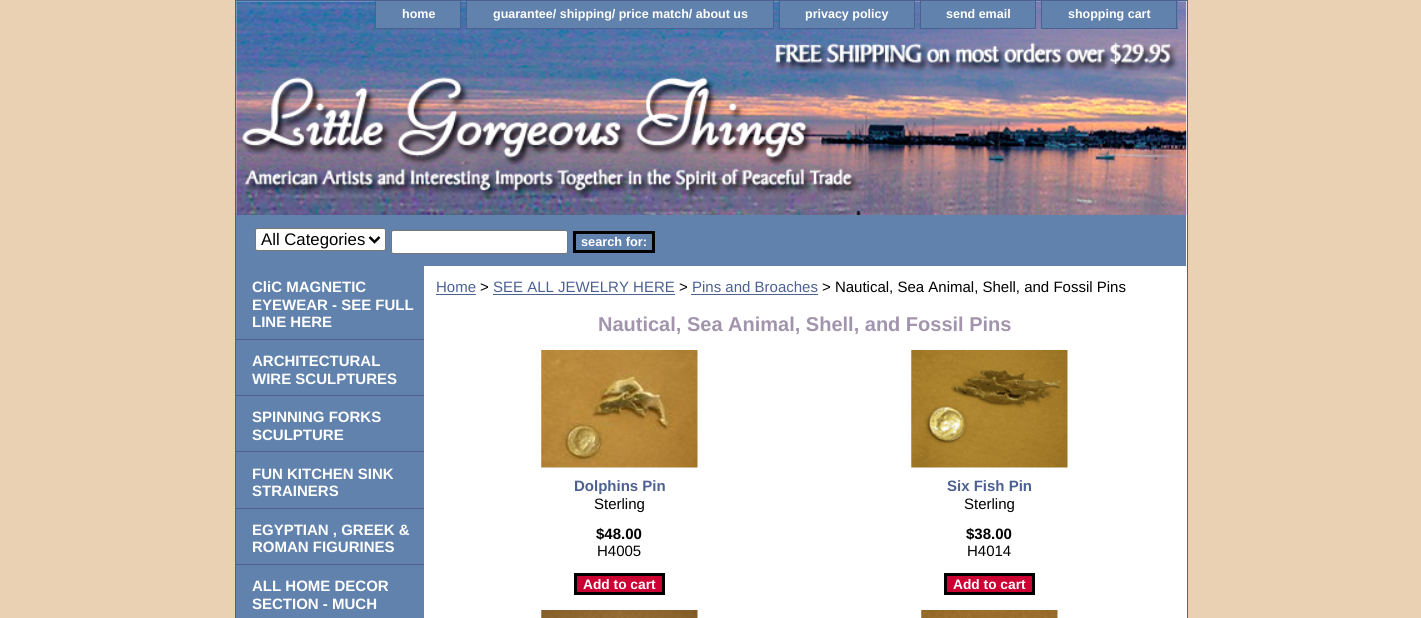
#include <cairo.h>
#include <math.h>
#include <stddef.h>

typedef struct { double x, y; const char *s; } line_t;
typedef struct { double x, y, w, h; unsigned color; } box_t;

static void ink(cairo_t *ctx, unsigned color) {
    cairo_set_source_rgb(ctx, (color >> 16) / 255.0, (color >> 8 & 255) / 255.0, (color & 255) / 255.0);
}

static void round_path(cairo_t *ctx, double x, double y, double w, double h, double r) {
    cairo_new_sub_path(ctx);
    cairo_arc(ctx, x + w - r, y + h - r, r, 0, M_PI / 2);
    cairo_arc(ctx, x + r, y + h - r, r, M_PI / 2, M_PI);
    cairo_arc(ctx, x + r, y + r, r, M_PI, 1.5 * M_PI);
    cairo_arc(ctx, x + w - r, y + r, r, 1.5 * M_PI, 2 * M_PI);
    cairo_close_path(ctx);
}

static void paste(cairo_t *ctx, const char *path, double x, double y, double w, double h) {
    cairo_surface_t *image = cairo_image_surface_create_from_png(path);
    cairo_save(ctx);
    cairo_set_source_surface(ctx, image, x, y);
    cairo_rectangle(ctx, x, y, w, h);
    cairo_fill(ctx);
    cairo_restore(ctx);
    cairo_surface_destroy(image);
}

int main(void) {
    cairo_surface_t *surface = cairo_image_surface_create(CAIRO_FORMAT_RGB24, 1421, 618);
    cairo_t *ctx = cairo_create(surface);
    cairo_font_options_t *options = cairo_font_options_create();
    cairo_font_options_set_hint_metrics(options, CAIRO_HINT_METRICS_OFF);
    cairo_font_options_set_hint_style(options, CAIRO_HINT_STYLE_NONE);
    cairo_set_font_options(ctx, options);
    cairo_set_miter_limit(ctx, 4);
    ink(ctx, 0xEBD1B4);
    cairo_paint(ctx);
    ink(ctx, 0xFFFFFF);
    cairo_rectangle(ctx, 235.5, 0.5, 952, 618);
    cairo_fill_preserve(ctx);
    ink(ctx, 0x4C6092);
    cairo_set_line_width(ctx, 1);
    cairo_stroke(ctx);
    paste(ctx, "media/1.png", 236, 1, 951, 214);
    {
        static const box_t items[] = {
            {376, 1, 84, 27, 0x6182AD},
            {460, 1, 1, 28, 0x4C6092},
            {375, 28, 86, 1, 0x4C6092},
            {375, 1, 1, 28, 0x4C6092},
        };
        for (size_t i = 0; i < sizeof items / sizeof *items; i++) {
            ink(ctx, items[i].color);
            cairo_rectangle(ctx, items[i].x, items[i].y, items[i].w, items[i].h);
            cairo_fill(ctx);
        }
    }
    cairo_select_font_face(ctx, "Liberation Sans", CAIRO_FONT_SLANT_NORMAL, CAIRO_FONT_WEIGHT_BOLD);
    cairo_set_font_size(ctx, 12.5);
    ink(ctx, 0xFFFFFF);
    cairo_move_to(ctx, 402, 18);
    cairo_show_text(ctx, "home");
    {
        static const box_t items[] = {
            {467, 1, 306, 27, 0x6182AD},
            {773, 1, 1, 28, 0x4C6092},
            {466, 28, 308, 1, 0x4C6092},
            {466, 1, 1, 28, 0x4C6092},
        };
        for (size_t i = 0; i < sizeof items / sizeof *items; i++) {
            ink(ctx, items[i].color);
            cairo_rectangle(ctx, items[i].x, items[i].y, items[i].w, items[i].h);
            cairo_fill(ctx);
        }
    }
    ink(ctx, 0xFFFFFF);
    cairo_move_to(ctx, 493, 18);
    cairo_show_text(ctx, "guarantee/ shipping/ price match/ about us");
    {
        static const box_t items[] = {
            {780, 1, 134, 27, 0x6182AD},
            {914, 1, 1, 28, 0x4C6092},
            {779, 28, 136, 1, 0x4C6092},
            {779, 1, 1, 28, 0x4C6092},
        };
        for (size_t i = 0; i < sizeof items / sizeof *items; i++) {
            ink(ctx, items[i].color);
            cairo_rectangle(ctx, items[i].x, items[i].y, items[i].w, items[i].h);
            cairo_fill(ctx);
        }
    }
    ink(ctx, 0xFFFFFF);
    cairo_move_to(ctx, 805, 18);
    cairo_show_text(ctx, "privacy policy");
    {
        static const box_t items[] = {
            {921, 1, 114, 27, 0x6182AD},
            {1035, 1, 1, 28, 0x4C6092},
            {920, 28, 116, 1, 0x4C6092},
            {920, 1, 1, 28, 0x4C6092},
        };
        for (size_t i = 0; i < sizeof items / sizeof *items; i++) {
            ink(ctx, items[i].color);
            cairo_rectangle(ctx, items[i].x, items[i].y, items[i].w, items[i].h);
            cairo_fill(ctx);
        }
    }
    ink(ctx, 0xFFFFFF);
    cairo_move_to(ctx, 946, 18);
    cairo_show_text(ctx, "send email");
    {
        static const box_t items[] = {
            {1042, 1, 136, 27, 0x6182AD},
            {1176, 1, 1, 28, 0x4C6092},
            {1041, 28, 137, 1, 0x4C6092},
            {1041, 1, 1, 28, 0x4C6092},
        };
        for (size_t i = 0; i < sizeof items / sizeof *items; i++) {
            ink(ctx, items[i].color);
            cairo_rectangle(ctx, items[i].x, items[i].y, items[i].w, items[i].h);
            cairo_fill(ctx);
        }
    }
    ink(ctx, 0xFFFFFF);
    cairo_move_to(ctx, 1068, 18);
    cairo_show_text(ctx, "shopping cart");
    ink(ctx, 0x6182AD);
    cairo_rectangle(ctx, 236, 215, 950, 51);
    cairo_fill(ctx);
    ink(ctx, 0xFFFFFF);
    round_path(ctx, 255.5, 228.5, 130, 22, 2);
    cairo_fill_preserve(ctx);
    ink(ctx, 0x767676);
    cairo_stroke(ctx);
    cairo_new_path(ctx);
    cairo_move_to(ctx, 369.5, 237);
    cairo_line_to(ctx, 374.5, 242);
    cairo_line_to(ctx, 379.5, 237);
    ink(ctx, 0x000000);
    cairo_set_line_width(ctx, 2.5);
    cairo_stroke(ctx);
    cairo_select_font_face(ctx, "Liberation Sans", CAIRO_FONT_SLANT_NORMAL, CAIRO_FONT_WEIGHT_NORMAL);
    cairo_set_font_size(ctx, 16.75);
    cairo_move_to(ctx, 261, 245);
    cairo_show_text(ctx, "All Categories");
    ink(ctx, 0xFFFFFF);
    round_path(ctx, 391.5, 230.5, 176, 23, 2);
    cairo_fill_preserve(ctx);
    ink(ctx, 0x767676);
    cairo_set_line_width(ctx, 1);
    cairo_stroke(ctx);
    cairo_rectangle(ctx, 574.5, 232.5, 79, 19);
    ink(ctx, 0x000000);
    cairo_set_line_width(ctx, 3);
    cairo_stroke(ctx);
    cairo_select_font_face(ctx, "Liberation Sans", CAIRO_FONT_SLANT_NORMAL, CAIRO_FONT_WEIGHT_BOLD);
    cairo_set_font_size(ctx, 12.75);
    ink(ctx, 0xFFFFFF);
    cairo_move_to(ctx, 581, 246);
    cairo_show_text(ctx, "search for:");
    ink(ctx, 0x6182AD);
    cairo_rectangle(ctx, 236, 266, 188, 352);
    cairo_fill(ctx);
    ink(ctx, 0x4C6092);
    cairo_rectangle(ctx, 236, 339, 188, 1);
    cairo_fill(ctx);
    cairo_set_font_size(ctx, 15);
    ink(ctx, 0xFFFFFF);
    {
        static const line_t items[] = {
            {252, 292, "CliC MAGNETIC"},
            {252, 310, "EYEWEAR - SEE FULL"},
            {252, 327, "LINE HERE"},
        };
        for (size_t i = 0; i < sizeof items / sizeof *items; i++) {
            cairo_move_to(ctx, items[i].x, items[i].y);
            cairo_show_text(ctx, items[i].s);
        }
    }
    ink(ctx, 0x4C6092);
    cairo_rectangle(ctx, 236, 395, 188, 1);
    cairo_fill(ctx);
    ink(ctx, 0xFFFFFF);
    cairo_move_to(ctx, 252, 366);
    cairo_show_text(ctx, "ARCHITECTURAL");
    cairo_move_to(ctx, 252, 384);
    cairo_show_text(ctx, "WIRE SCULPTURES");
    ink(ctx, 0x4C6092);
    cairo_rectangle(ctx, 236, 451, 188, 1);
    cairo_fill(ctx);
    ink(ctx, 0xFFFFFF);
    cairo_move_to(ctx, 252, 422);
    cairo_show_text(ctx, "SPINNING FORKS");
    cairo_move_to(ctx, 252, 440);
    cairo_show_text(ctx, "SCULPTURE");
    ink(ctx, 0x4C6092);
    cairo_rectangle(ctx, 236, 508, 188, 1);
    cairo_fill(ctx);
    ink(ctx, 0xFFFFFF);
    cairo_move_to(ctx, 252, 479);
    cairo_show_text(ctx, "FUN KITCHEN SINK");
    cairo_move_to(ctx, 252, 496);
    cairo_show_text(ctx, "STRAINERS");
    ink(ctx, 0x4C6092);
    cairo_rectangle(ctx, 236, 564, 188, 1);
    cairo_fill(ctx);
    ink(ctx, 0xFFFFFF);
    {
        static const line_t items[] = {
            {252, 535, "EGYPTIAN , GREEK &"},
            {252, 552, "ROMAN FIGURINES"},
            {252, 591, "ALL HOME DECOR"},
            {252, 609, "SECTION - MUCH"},
        };
        for (size_t i = 0; i < sizeof items / sizeof *items; i++) {
            cairo_move_to(ctx, items[i].x, items[i].y);
            cairo_show_text(ctx, items[i].s);
        }
    }
    cairo_select_font_face(ctx, "Liberation Sans", CAIRO_FONT_SLANT_NORMAL, CAIRO_FONT_WEIGHT_NORMAL);
    ink(ctx, 0x4C6092);
    cairo_move_to(ctx, 436, 292);
    cairo_show_text(ctx, "Home");
    cairo_rectangle(ctx, 436, 294, 40, 1);
    cairo_fill(ctx);
    ink(ctx, 0x000000);
    cairo_move_to(ctx, 480, 292);
    cairo_show_text(ctx, ">");
    ink(ctx, 0x4C6092);
    cairo_move_to(ctx, 493, 292);
    cairo_show_text(ctx, "SEE ALL JEWELRY HERE");
    cairo_rectangle(ctx, 493, 294, 182, 1);
    cairo_fill(ctx);
    ink(ctx, 0x000000);
    cairo_move_to(ctx, 679, 292);
    cairo_show_text(ctx, ">");
    ink(ctx, 0x4C6092);
    cairo_move_to(ctx, 692, 292);
    cairo_show_text(ctx, "Pins and Broaches");
    cairo_rectangle(ctx, 691, 294, 127, 1);
    cairo_fill(ctx);
    ink(ctx, 0x000000);
    cairo_move_to(ctx, 822, 292);
    cairo_show_text(ctx, "> Nautical, Sea Animal, Shell, and Fossil Pins");
    cairo_select_font_face(ctx, "Liberation Sans", CAIRO_FONT_SLANT_NORMAL, CAIRO_FONT_WEIGHT_BOLD);
    cairo_set_font_size(ctx, 20);
    ink(ctx, 0xA294AD);
    cairo_move_to(ctx, 598, 331);
    cairo_show_text(ctx, "Nautical, Sea Animal, Shell, and Fossil Pins");
    paste(ctx, "media/2.png", 541, 350, 157, 118);
    cairo_set_font_size(ctx, 15);
    ink(ctx, 0x4C6092);
    cairo_move_to(ctx, 574, 491);
    cairo_show_text(ctx, "Dolphins Pin");
    cairo_select_font_face(ctx, "Liberation Sans", CAIRO_FONT_SLANT_NORMAL, CAIRO_FONT_WEIGHT_NORMAL);
    ink(ctx, 0x000000);
    cairo_move_to(ctx, 594, 509);
    cairo_show_text(ctx, "Sterling");
    cairo_select_font_face(ctx, "Liberation Sans", CAIRO_FONT_SLANT_NORMAL, CAIRO_FONT_WEIGHT_BOLD);
    cairo_move_to(ctx, 596, 539);
    cairo_show_text(ctx, "$48.00");
    cairo_select_font_face(ctx, "Liberation Sans", CAIRO_FONT_SLANT_NORMAL, CAIRO_FONT_WEIGHT_NORMAL);
    cairo_move_to(ctx, 597, 556);
    cairo_show_text(ctx, "H4005");
    ink(ctx, 0xCC0033);
    cairo_rectangle(ctx, 575.5, 574.5, 88, 19);
    cairo_fill_preserve(ctx);
    ink(ctx, 0x000000);
    cairo_stroke(ctx);
    cairo_select_font_face(ctx, "Liberation Sans", CAIRO_FONT_SLANT_NORMAL, CAIRO_FONT_WEIGHT_BOLD);
    cairo_set_font_size(ctx, 13.75);
    ink(ctx, 0xFFFFFF);
    cairo_move_to(ctx, 583, 589);
    cairo_show_text(ctx, "Add to cart");
    paste(ctx, "media/3.png", 911, 350, 157, 118);
    cairo_set_font_size(ctx, 15);
    ink(ctx, 0x4C6092);
    cairo_move_to(ctx, 947, 491);
    cairo_show_text(ctx, "Six Fish Pin");
    cairo_select_font_face(ctx, "Liberation Sans", CAIRO_FONT_SLANT_NORMAL, CAIRO_FONT_WEIGHT_NORMAL);
    ink(ctx, 0x000000);
    cairo_move_to(ctx, 964, 509);
    cairo_show_text(ctx, "Sterling");
    cairo_select_font_face(ctx, "Liberation Sans", CAIRO_FONT_SLANT_NORMAL, CAIRO_FONT_WEIGHT_BOLD);
    cairo_move_to(ctx, 966, 539);
    cairo_show_text(ctx, "$38.00");
    cairo_select_font_face(ctx, "Liberation Sans", CAIRO_FONT_SLANT_NORMAL, CAIRO_FONT_WEIGHT_NORMAL);
    cairo_move_to(ctx, 967, 556);
    cairo_show_text(ctx, "H4014");
    ink(ctx, 0xCC0033);
    cairo_rectangle(ctx, 945.5, 574.5, 88, 19);
    cairo_fill_preserve(ctx);
    ink(ctx, 0x000000);
    cairo_stroke(ctx);
    cairo_select_font_face(ctx, "Liberation Sans", CAIRO_FONT_SLANT_NORMAL, CAIRO_FONT_WEIGHT_BOLD);
    cairo_set_font_size(ctx, 13.75);
    ink(ctx, 0xFFFFFF);
    cairo_move_to(ctx, 953, 589);
    cairo_show_text(ctx, "Add to cart");
    paste(ctx, "media/4.png", 541, 610, 157, 8);
    paste(ctx, "media/5.png", 921, 610, 137, 8);
    cairo_surface_write_to_png(surface, "image.png");
    cairo_font_options_destroy(options);
    cairo_destroy(ctx);
    cairo_surface_destroy(surface);
    return 0;
}
